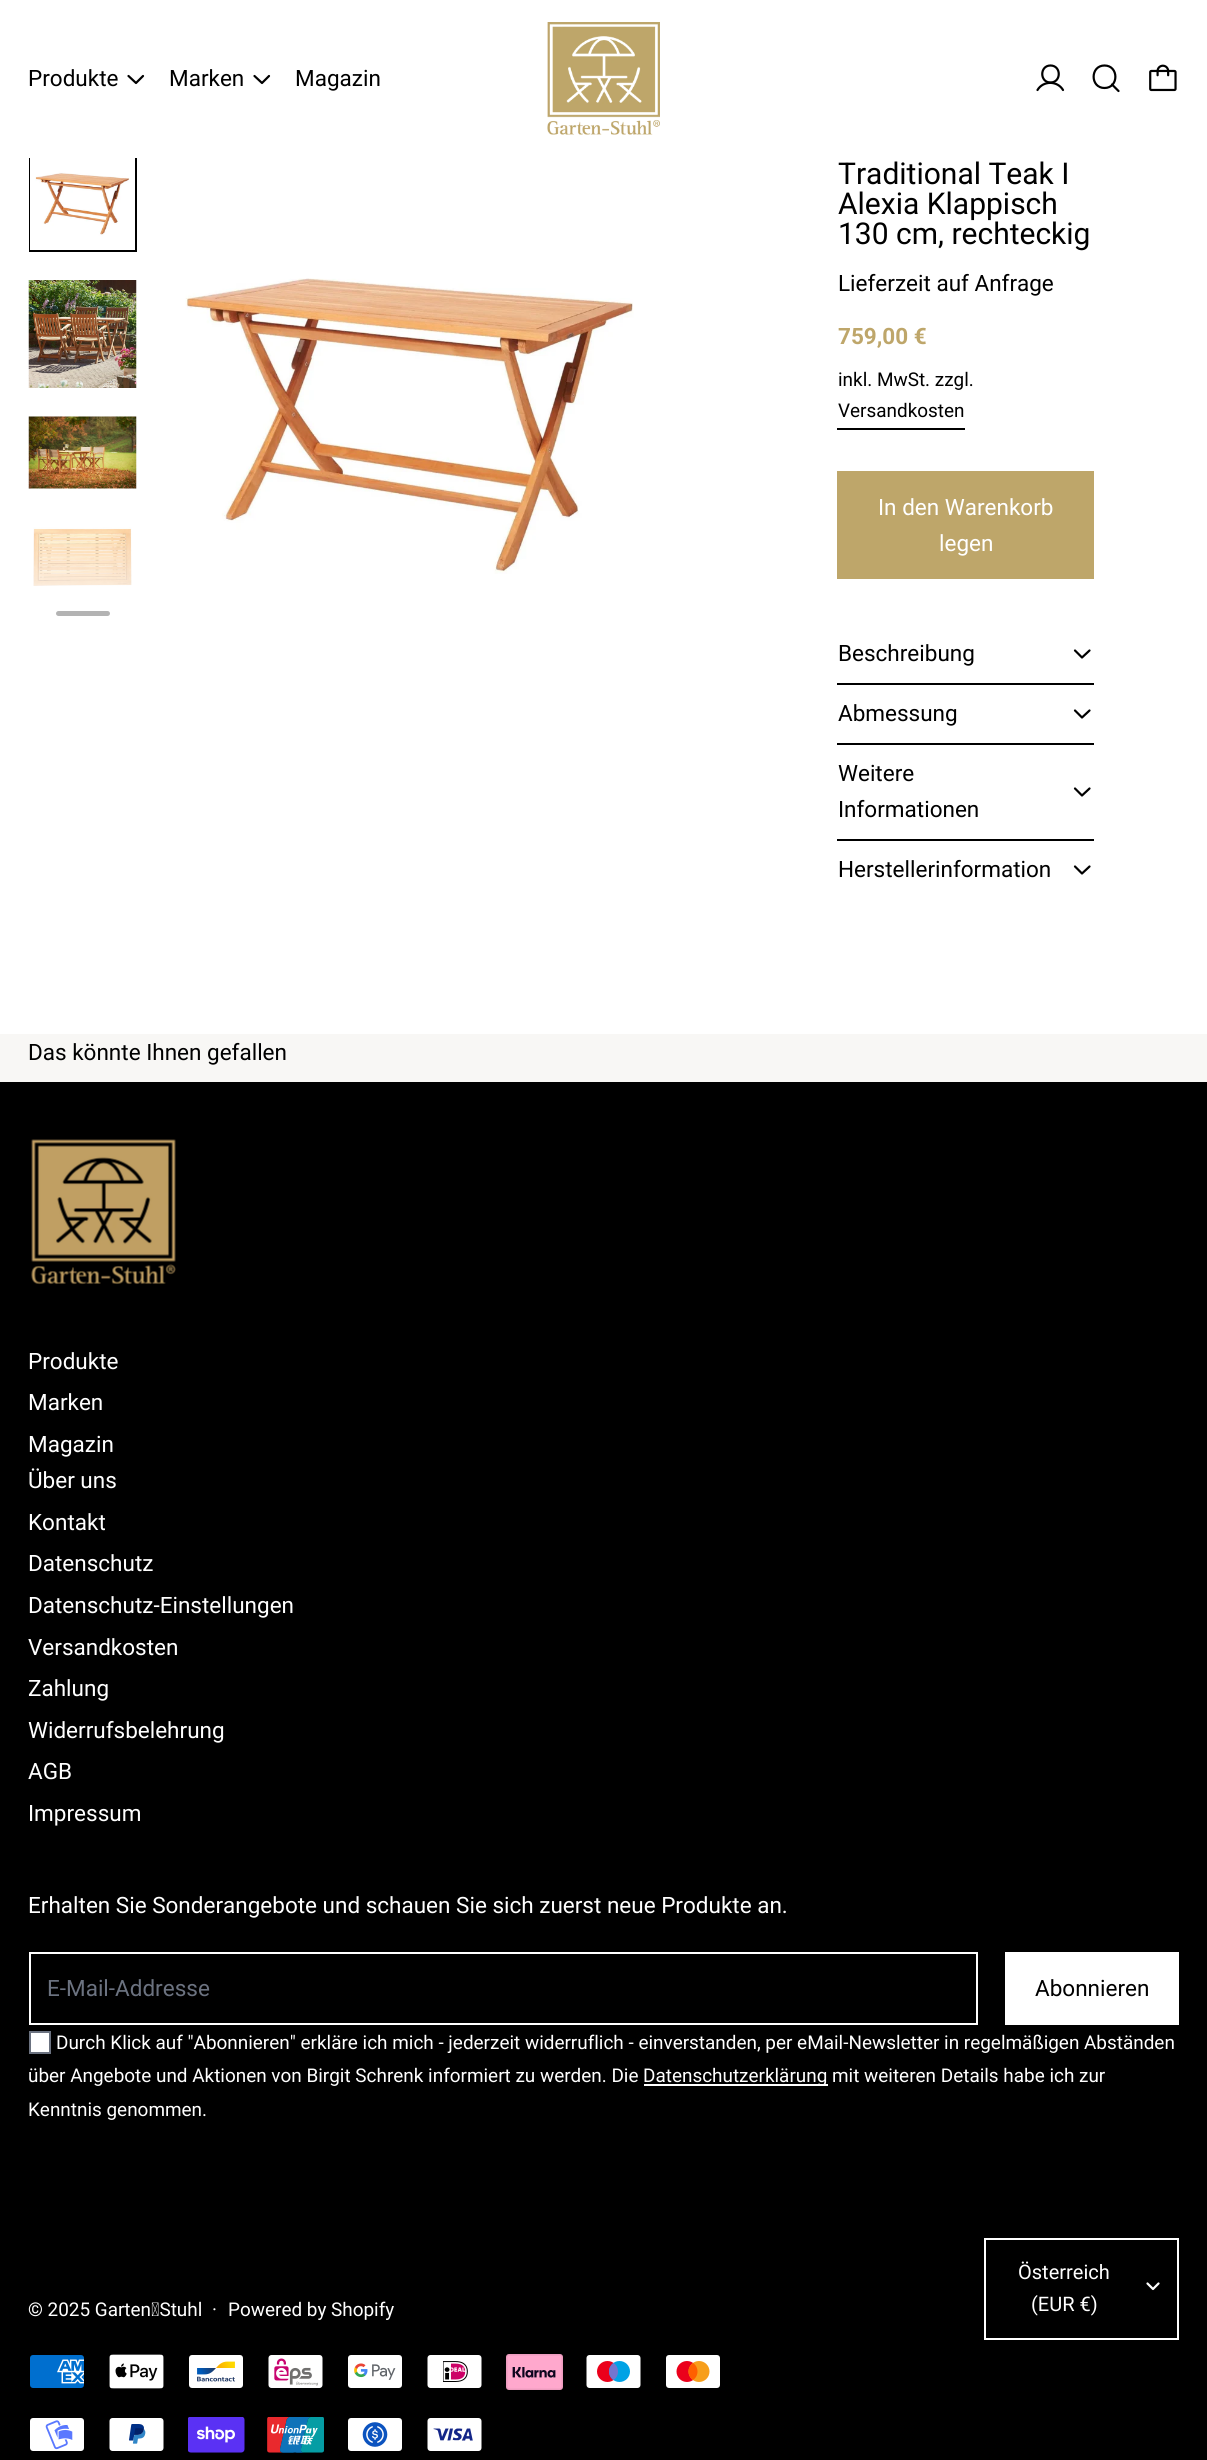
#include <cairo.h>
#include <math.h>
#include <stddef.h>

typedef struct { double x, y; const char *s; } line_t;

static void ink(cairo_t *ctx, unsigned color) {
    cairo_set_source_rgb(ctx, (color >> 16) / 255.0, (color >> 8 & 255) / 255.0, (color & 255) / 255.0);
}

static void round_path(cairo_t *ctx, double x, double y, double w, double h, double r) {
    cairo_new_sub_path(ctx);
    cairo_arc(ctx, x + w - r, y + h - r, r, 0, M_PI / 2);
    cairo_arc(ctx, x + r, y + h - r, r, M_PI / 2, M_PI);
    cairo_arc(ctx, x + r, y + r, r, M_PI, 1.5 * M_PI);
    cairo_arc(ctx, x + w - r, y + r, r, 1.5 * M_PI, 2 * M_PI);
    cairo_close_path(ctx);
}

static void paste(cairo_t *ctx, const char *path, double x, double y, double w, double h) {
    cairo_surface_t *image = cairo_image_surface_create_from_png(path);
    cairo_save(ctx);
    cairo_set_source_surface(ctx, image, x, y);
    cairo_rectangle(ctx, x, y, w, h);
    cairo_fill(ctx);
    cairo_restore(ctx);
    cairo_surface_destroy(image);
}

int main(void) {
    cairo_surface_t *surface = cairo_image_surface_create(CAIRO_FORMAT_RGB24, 1207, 2460);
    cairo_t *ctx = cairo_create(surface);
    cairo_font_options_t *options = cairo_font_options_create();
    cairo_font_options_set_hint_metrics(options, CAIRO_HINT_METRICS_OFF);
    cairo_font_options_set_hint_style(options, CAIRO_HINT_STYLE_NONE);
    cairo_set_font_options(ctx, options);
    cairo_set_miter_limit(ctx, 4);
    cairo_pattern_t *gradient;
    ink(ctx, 0xFFFFFF);
    cairo_paint(ctx);
    cairo_rectangle(ctx, 30, 145, 106, 106);
    ink(ctx, 0x000000);
    cairo_stroke(ctx);
    ink(ctx, 0xFFFFFF);
    cairo_rectangle(ctx, 29, 144, 108, 14);
    cairo_fill(ctx);
    cairo_select_font_face(ctx, "Roboto", CAIRO_FONT_SLANT_NORMAL, CAIRO_FONT_WEIGHT_NORMAL);
    cairo_set_font_size(ctx, 22.5);
    ink(ctx, 0x000000);
    cairo_move_to(ctx, 28, 86);
    cairo_show_text(ctx, "Produkte");
    cairo_new_path(ctx);
    cairo_move_to(ctx, 143, 76);
    cairo_line_to(ctx, 136, 83);
    cairo_line_to(ctx, 128.5, 76);
    cairo_set_line_width(ctx, 2.2);
    cairo_set_line_cap(ctx, CAIRO_LINE_CAP_ROUND);
    cairo_set_line_join(ctx, CAIRO_LINE_JOIN_ROUND);
    cairo_stroke(ctx);
    cairo_move_to(ctx, 169, 86);
    cairo_show_text(ctx, "Marken");
    cairo_new_path(ctx);
    cairo_move_to(ctx, 269, 76);
    cairo_line_to(ctx, 262, 83);
    cairo_line_to(ctx, 254.5, 76);
    cairo_stroke(ctx);
    cairo_move_to(ctx, 295, 86);
    cairo_show_text(ctx, "Magazin");
    paste(ctx, "media/1.png", 547, 22, 113, 113);
    cairo_new_path(ctx);
    cairo_move_to(ctx, 1050.5, 82.5);
    cairo_curve_to(ctx, 1061.5, 82.5, 1061.5, 65.5, 1050.5, 65.5);
    cairo_curve_to(ctx, 1039.5, 65.5, 1039.5, 82.5, 1050.5, 82.5);
    cairo_close_path(ctx);
    cairo_set_line_cap(ctx, CAIRO_LINE_CAP_BUTT);
    cairo_set_line_join(ctx, CAIRO_LINE_JOIN_MITER);
    cairo_stroke(ctx);
    cairo_new_path(ctx);
    cairo_move_to(ctx, 1037.5, 90);
    cairo_curve_to(ctx, 1043, 80.5, 1057.5, 80.5, 1063, 90);
    cairo_set_line_cap(ctx, CAIRO_LINE_CAP_ROUND);
    cairo_set_line_join(ctx, CAIRO_LINE_JOIN_ROUND);
    cairo_stroke(ctx);
    cairo_new_path(ctx);
    cairo_move_to(ctx, 1104.5, 88);
    cairo_curve_to(ctx, 1119, 88, 1119, 65.5, 1104.5, 65.5);
    cairo_curve_to(ctx, 1090, 65.5, 1090, 88, 1104.5, 88);
    cairo_close_path(ctx);
    cairo_move_to(ctx, 1112, 84.5);
    cairo_line_to(ctx, 1118.5, 91);
    cairo_stroke(ctx);
    paste(ctx, "media/2.png", 1149, 64, 28, 28);
    paste(ctx, "media/3.png", 30, 158, 105, 92);
    paste(ctx, "media/4.png", 28, 280, 109, 108);
    paste(ctx, "media/5.png", 28, 416, 109, 73);
    paste(ctx, "media/6.png", 33, 527, 99, 60);
    gradient = cairo_pattern_create_linear(83, 620, 83, 485);
    cairo_pattern_add_color_stop_rgba(gradient, 0, 1, 1, 1, 1);
    cairo_pattern_add_color_stop_rgba(gradient, 1, 1, 1, 1, 0);
    cairo_set_source(ctx, gradient);
    cairo_pattern_destroy(gradient);
    cairo_rectangle(ctx, 29, 488, 107, 99);
    cairo_fill(ctx);
    ink(ctx, 0xB3B3B3);
    round_path(ctx, 56, 611, 54, 5, 2.5);
    cairo_fill(ctx);
    paste(ctx, "media/7.png", 185, 278, 449, 296);
    cairo_set_font_size(ctx, 30);
    ink(ctx, 0x000000);
    {
        static const line_t items[] = {
            {838, 184, "Traditional Teak I"},
            {838, 214, "Alexia Klappisch"},
            {838, 244, "130 cm, rechteckig"},
        };
        for (size_t i = 0; i < sizeof items / sizeof *items; i++) {
            cairo_move_to(ctx, items[i].x, items[i].y);
            cairo_show_text(ctx, items[i].s);
        }
    }
    cairo_set_font_size(ctx, 22.5);
    cairo_move_to(ctx, 838, 291);
    cairo_show_text(ctx, "Lieferzeit auf Anfrage");
    cairo_select_font_face(ctx, "Roboto", CAIRO_FONT_SLANT_NORMAL, CAIRO_FONT_WEIGHT_BOLD);
    ink(ctx, 0xBEA66A);
    cairo_move_to(ctx, 838, 344);
    cairo_show_text(ctx, "759,00 €");
    cairo_select_font_face(ctx, "Roboto", CAIRO_FONT_SLANT_NORMAL, CAIRO_FONT_WEIGHT_NORMAL);
    cairo_set_font_size(ctx, 18.92);
    ink(ctx, 0x000000);
    cairo_move_to(ctx, 838, 386);
    cairo_show_text(ctx, "inkl. MwSt. zzgl.");
    cairo_move_to(ctx, 838, 417);
    cairo_show_text(ctx, "Versandkosten");
    cairo_rectangle(ctx, 837, 428, 128, 2);
    cairo_fill(ctx);
    ink(ctx, 0xBEA66A);
    cairo_rectangle(ctx, 837, 471, 257, 108);
    cairo_fill(ctx);
    cairo_set_font_size(ctx, 22.5);
    ink(ctx, 0xFFFFFF);
    cairo_move_to(ctx, 878, 515);
    cairo_show_text(ctx, "In den Warenkorb");
    cairo_move_to(ctx, 939, 551);
    cairo_show_text(ctx, "legen");
    ink(ctx, 0x000000);
    cairo_move_to(ctx, 838, 661);
    cairo_show_text(ctx, "Beschreibung");
    cairo_new_path(ctx);
    cairo_move_to(ctx, 1089.5, 650.5);
    cairo_line_to(ctx, 1082, 657.5);
    cairo_line_to(ctx, 1075, 650.5);
    cairo_stroke(ctx);
    cairo_rectangle(ctx, 837, 683, 257, 2);
    cairo_fill(ctx);
    cairo_move_to(ctx, 838, 721);
    cairo_show_text(ctx, "Abmessung");
    cairo_new_path(ctx);
    cairo_move_to(ctx, 1089.5, 710.5);
    cairo_line_to(ctx, 1082, 717.5);
    cairo_line_to(ctx, 1075, 710.5);
    cairo_stroke(ctx);
    cairo_rectangle(ctx, 837, 743, 257, 2);
    cairo_fill(ctx);
    cairo_move_to(ctx, 838, 781);
    cairo_show_text(ctx, "Weitere");
    cairo_move_to(ctx, 838, 817);
    cairo_show_text(ctx, "Informationen");
    cairo_new_path(ctx);
    cairo_move_to(ctx, 1089.5, 788.5);
    cairo_line_to(ctx, 1082, 795.5);
    cairo_line_to(ctx, 1075, 788.5);
    cairo_stroke(ctx);
    cairo_rectangle(ctx, 837, 839, 257, 2);
    cairo_fill(ctx);
    cairo_move_to(ctx, 838, 877);
    cairo_show_text(ctx, "Herstellerinformation");
    cairo_new_path(ctx);
    cairo_move_to(ctx, 1089.5, 866.5);
    cairo_line_to(ctx, 1082, 873.5);
    cairo_line_to(ctx, 1075, 866.5);
    cairo_stroke(ctx);
    ink(ctx, 0xF8F7F5);
    cairo_rectangle(ctx, 0, 1034, 1207, 48);
    cairo_fill(ctx);
    ink(ctx, 0x000000);
    cairo_move_to(ctx, 28, 1060);
    cairo_show_text(ctx, "Das könnte Ihnen gefallen");
    cairo_rectangle(ctx, 0, 1082, 1207, 1378);
    cairo_fill(ctx);
    paste(ctx, "media/8.png", 31, 1139, 145, 146);
    ink(ctx, 0xFFFFFF);
    {
        static const line_t items[] = {
            {28, 1369, "Produkte"},
            {28, 1410, "Marken"},
            {28, 1452, "Magazin"},
            {28, 1488, "Über uns"},
            {28, 1530, "Kontakt"},
            {28, 1571, "Datenschutz"},
            {28, 1613, "Datenschutz-Einstellungen"},
            {28, 1655, "Versandkosten"},
            {28, 1696, "Zahlung"},
            {28, 1738, "Widerrufsbelehrung"},
            {28, 1779, "AGB"},
            {28, 1821, "Impressum"},
            {28, 1913, "Erhalten Sie Sonderangebote und schauen Sie sich zuerst neue Produkte an."},
        };
        for (size_t i = 0; i < sizeof items / sizeof *items; i++) {
            cairo_move_to(ctx, items[i].x, items[i].y);
            cairo_show_text(ctx, items[i].s);
        }
    }
    cairo_rectangle(ctx, 30, 1953, 947, 71);
    cairo_set_line_width(ctx, 2);
    cairo_set_line_cap(ctx, CAIRO_LINE_CAP_BUTT);
    cairo_set_line_join(ctx, CAIRO_LINE_JOIN_MITER);
    cairo_stroke(ctx);
    ink(ctx, 0x6B7280);
    cairo_move_to(ctx, 47, 1996);
    cairo_show_text(ctx, "E-Mail-Addresse");
    ink(ctx, 0xFFFFFF);
    cairo_rectangle(ctx, 1005, 1952, 174, 73);
    cairo_fill(ctx);
    ink(ctx, 0x000000);
    cairo_move_to(ctx, 1035, 1996);
    cairo_show_text(ctx, "Abonnieren");
    ink(ctx, 0xFFFFFF);
    cairo_rectangle(ctx, 30, 2032, 20, 21);
    cairo_fill_preserve(ctx);
    ink(ctx, 0x6B7280);
    cairo_stroke(ctx);
    cairo_set_font_size(ctx, 18.92);
    ink(ctx, 0xFFFFFF);
    cairo_move_to(ctx, 56, 2049);
    cairo_show_text(ctx, "Durch Klick auf \"Abonnieren\" erkläre ich mich - jederzeit widerruflich - einverstanden, per eMail-Newsletter in regelmäßigen Abständen");
    cairo_move_to(ctx, 28, 2082);
    cairo_show_text(ctx, "über Angebote und Aktionen von Birgit Schrenk informiert zu werden. Die");
    cairo_rectangle(ctx, 644, 2084, 184, 2);
    cairo_fill(ctx);
    {
        static const line_t items[] = {
            {643, 2082, "Datenschutzerklärung mit weiteren Details habe ich zur"},
            {28, 2116, "Kenntnis genommen."},
            {28, 2316, "© 2025 Garten‑Stuhl"},
            {212, 2316, "·"},
            {228, 2316, "Powered by Shopify"},
        };
        for (size_t i = 0; i < sizeof items / sizeof *items; i++) {
            cairo_move_to(ctx, items[i].x, items[i].y);
            cairo_show_text(ctx, items[i].s);
        }
    }
    paste(ctx, "media/9.png", 30, 2355, 54, 33);
    paste(ctx, "media/10.png", 109, 2354, 55, 35);
    paste(ctx, "media/11.png", 189, 2355, 54, 33);
    paste(ctx, "media/12.png", 268, 2355, 55, 33);
    paste(ctx, "media/13.png", 348, 2355, 54, 33);
    paste(ctx, "media/14.png", 427, 2355, 55, 33);
    paste(ctx, "media/15.png", 506, 2354, 57, 36);
    paste(ctx, "media/16.png", 586, 2355, 55, 33);
    paste(ctx, "media/17.png", 666, 2355, 54, 33);
    paste(ctx, "media/18.png", 30, 2418, 54, 33);
    paste(ctx, "media/19.png", 109, 2418, 55, 33);
    paste(ctx, "media/20.png", 188, 2417, 57, 36);
    paste(ctx, "media/21.png", 267, 2417, 57, 36);
    paste(ctx, "media/22.png", 348, 2418, 54, 33);
    paste(ctx, "media/23.png", 427, 2418, 55, 33);
    cairo_rectangle(ctx, 985, 2239, 193, 100);
    cairo_stroke(ctx);
    cairo_set_font_size(ctx, 20);
    cairo_move_to(ctx, 1018, 2279);
    cairo_show_text(ctx, "Österreich");
    cairo_new_path(ctx);
    cairo_move_to(ctx, 1158.5, 2283.5);
    cairo_line_to(ctx, 1153, 2289);
    cairo_line_to(ctx, 1147.5, 2283.5);
    cairo_set_line_width(ctx, 2.2);
    cairo_set_line_cap(ctx, CAIRO_LINE_CAP_ROUND);
    cairo_set_line_join(ctx, CAIRO_LINE_JOIN_ROUND);
    cairo_stroke(ctx);
    cairo_move_to(ctx, 1031, 2311);
    cairo_show_text(ctx, "(EUR €)");
    cairo_surface_write_to_png(surface, "image.png");
    cairo_font_options_destroy(options);
    cairo_destroy(ctx);
    cairo_surface_destroy(surface);
    return 0;
}
